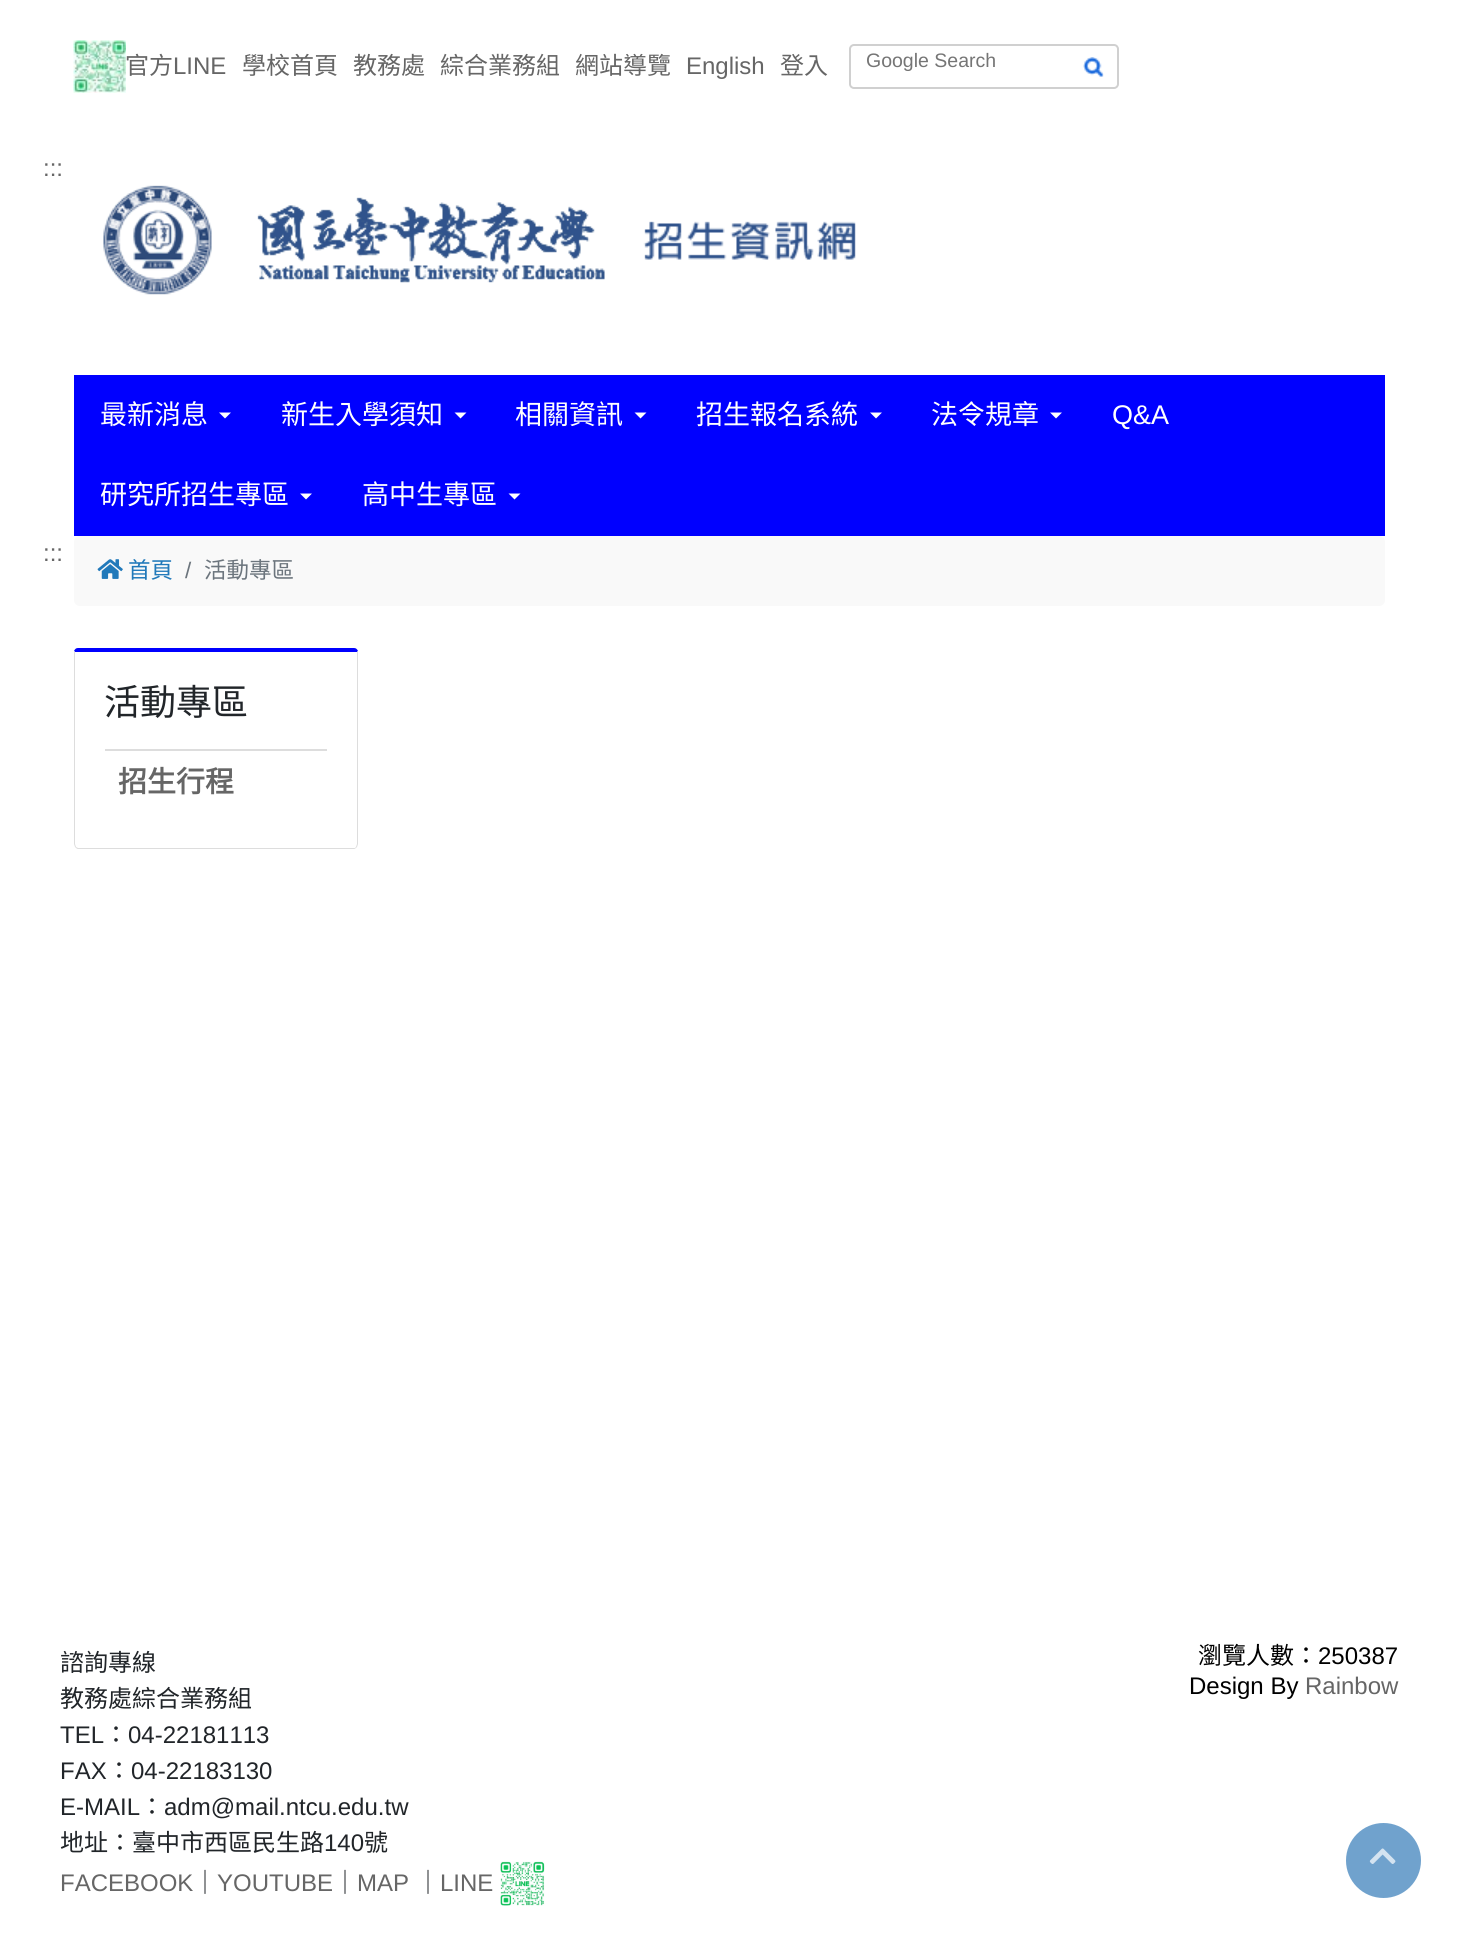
#include <cairo.h>
#include <math.h>
#include <stddef.h>

typedef struct { double x, y; const char *s; } line_t;

static void ink(cairo_t *ctx, unsigned color) {
    cairo_set_source_rgb(ctx, (color >> 16) / 255.0, (color >> 8 & 255) / 255.0, (color & 255) / 255.0);
}

static void round_path(cairo_t *ctx, double x, double y, double w, double h, double r) {
    cairo_new_sub_path(ctx);
    cairo_arc(ctx, x + w - r, y + h - r, r, 0, M_PI / 2);
    cairo_arc(ctx, x + r, y + h - r, r, M_PI / 2, M_PI);
    cairo_arc(ctx, x + r, y + r, r, M_PI, 1.5 * M_PI);
    cairo_arc(ctx, x + w - r, y + r, r, 1.5 * M_PI, 2 * M_PI);
    cairo_close_path(ctx);
}

static void paste(cairo_t *ctx, const char *path, double x, double y, double w, double h) {
    cairo_surface_t *image = cairo_image_surface_create_from_png(path);
    cairo_save(ctx);
    cairo_set_source_surface(ctx, image, x, y);
    cairo_rectangle(ctx, x, y, w, h);
    cairo_fill(ctx);
    cairo_restore(ctx);
    cairo_surface_destroy(image);
}

int main(void) {
    cairo_surface_t *surface = cairo_image_surface_create(CAIRO_FORMAT_RGB24, 1457, 1935);
    cairo_t *ctx = cairo_create(surface);
    cairo_font_options_t *options = cairo_font_options_create();
    cairo_font_options_set_hint_metrics(options, CAIRO_HINT_METRICS_OFF);
    cairo_font_options_set_hint_style(options, CAIRO_HINT_STYLE_NONE);
    cairo_set_font_options(ctx, options);
    cairo_set_miter_limit(ctx, 4);
    ink(ctx, 0xFFFFFF);
    cairo_paint(ctx);
    paste(ctx, "media/1.png", 73, 40, 53, 53);
    cairo_select_font_face(ctx, "Noto Sans CJK TC", CAIRO_FONT_SLANT_NORMAL, CAIRO_FONT_WEIGHT_NORMAL);
    cairo_set_font_size(ctx, 24);
    ink(ctx, 0x666666);
    cairo_move_to(ctx, 125, 74);
    cairo_show_text(ctx, "官方");
    cairo_select_font_face(ctx, "Liberation Sans", CAIRO_FONT_SLANT_NORMAL, CAIRO_FONT_WEIGHT_NORMAL);
    cairo_move_to(ctx, 173, 74);
    cairo_show_text(ctx, "LINE");
    cairo_select_font_face(ctx, "Noto Sans CJK TC", CAIRO_FONT_SLANT_NORMAL, CAIRO_FONT_WEIGHT_NORMAL);
    {
        static const line_t items[] = {
            {242, 74, "學校首頁"},
            {353, 74, "教務處"},
            {440, 74, "綜合業務組"},
            {575, 74, "網站導覽"},
        };
        for (size_t i = 0; i < sizeof items / sizeof *items; i++) {
            cairo_move_to(ctx, items[i].x, items[i].y);
            cairo_show_text(ctx, items[i].s);
        }
    }
    cairo_select_font_face(ctx, "Liberation Sans", CAIRO_FONT_SLANT_NORMAL, CAIRO_FONT_WEIGHT_NORMAL);
    cairo_move_to(ctx, 686, 74);
    cairo_show_text(ctx, "English");
    cairo_select_font_face(ctx, "Noto Sans CJK TC", CAIRO_FONT_SLANT_NORMAL, CAIRO_FONT_WEIGHT_NORMAL);
    cairo_move_to(ctx, 780, 74);
    cairo_show_text(ctx, "登入");
    round_path(ctx, 850, 45, 268, 43, 4);
    ink(ctx, 0xD0D0D0);
    cairo_stroke(ctx);
    cairo_select_font_face(ctx, "Liberation Sans", CAIRO_FONT_SLANT_NORMAL, CAIRO_FONT_WEIGHT_NORMAL);
    cairo_set_font_size(ctx, 19.5);
    ink(ctx, 0x757575);
    cairo_move_to(ctx, 866, 67);
    cairo_show_text(ctx, "Google Search");
    paste(ctx, "media/2.png", 1083, 57, 21, 20);
    cairo_set_font_size(ctx, 24);
    ink(ctx, 0x666666);
    cairo_move_to(ctx, 43, 176);
    cairo_show_text(ctx, ":::");
    paste(ctx, "media/3.png", 103, 185, 753, 110);
    ink(ctx, 0x0000FF);
    cairo_rectangle(ctx, 74, 375, 1311, 161);
    cairo_fill(ctx);
    cairo_select_font_face(ctx, "Noto Sans CJK TC", CAIRO_FONT_SLANT_NORMAL, CAIRO_FONT_WEIGHT_NORMAL);
    cairo_set_font_size(ctx, 27);
    ink(ctx, 0xFFFFFF);
    cairo_move_to(ctx, 100, 424);
    cairo_show_text(ctx, "最新消息");
    cairo_new_path(ctx);
    cairo_move_to(ctx, 219, 412.5);
    cairo_line_to(ctx, 231, 412.5);
    cairo_line_to(ctx, 225, 418.5);
    cairo_close_path(ctx);
    cairo_fill(ctx);
    cairo_move_to(ctx, 281, 424);
    cairo_show_text(ctx, "新生入學須知");
    cairo_new_path(ctx);
    cairo_move_to(ctx, 454.5, 412.5);
    cairo_line_to(ctx, 466.5, 412.5);
    cairo_line_to(ctx, 460.5, 418.5);
    cairo_close_path(ctx);
    cairo_fill(ctx);
    cairo_move_to(ctx, 515, 424);
    cairo_show_text(ctx, "相關資訊");
    cairo_new_path(ctx);
    cairo_move_to(ctx, 634.5, 412.5);
    cairo_line_to(ctx, 646.5, 412.5);
    cairo_line_to(ctx, 640.5, 418.5);
    cairo_close_path(ctx);
    cairo_fill(ctx);
    cairo_move_to(ctx, 696, 424);
    cairo_show_text(ctx, "招生報名系統");
    cairo_new_path(ctx);
    cairo_move_to(ctx, 870, 412.5);
    cairo_line_to(ctx, 882, 412.5);
    cairo_line_to(ctx, 876, 418.5);
    cairo_close_path(ctx);
    cairo_fill(ctx);
    cairo_move_to(ctx, 931, 424);
    cairo_show_text(ctx, "法令規章");
    cairo_new_path(ctx);
    cairo_move_to(ctx, 1050, 412.5);
    cairo_line_to(ctx, 1062, 412.5);
    cairo_line_to(ctx, 1056, 418.5);
    cairo_close_path(ctx);
    cairo_fill(ctx);
    cairo_select_font_face(ctx, "Liberation Sans", CAIRO_FONT_SLANT_NORMAL, CAIRO_FONT_WEIGHT_NORMAL);
    cairo_move_to(ctx, 1112, 424);
    cairo_show_text(ctx, "Q&A");
    cairo_select_font_face(ctx, "Noto Sans CJK TC", CAIRO_FONT_SLANT_NORMAL, CAIRO_FONT_WEIGHT_NORMAL);
    cairo_move_to(ctx, 100, 504);
    cairo_show_text(ctx, "研究所招生專區");
    cairo_new_path(ctx);
    cairo_move_to(ctx, 300, 493.5);
    cairo_line_to(ctx, 312, 493.5);
    cairo_line_to(ctx, 306, 499.5);
    cairo_close_path(ctx);
    cairo_fill(ctx);
    cairo_move_to(ctx, 362, 504);
    cairo_show_text(ctx, "高中生專區");
    cairo_new_path(ctx);
    cairo_move_to(ctx, 508.5, 493.5);
    cairo_line_to(ctx, 520.5, 493.5);
    cairo_line_to(ctx, 514.5, 499.5);
    cairo_close_path(ctx);
    cairo_fill(ctx);
    cairo_select_font_face(ctx, "Liberation Sans", CAIRO_FONT_SLANT_NORMAL, CAIRO_FONT_WEIGHT_NORMAL);
    cairo_set_font_size(ctx, 24);
    ink(ctx, 0x666666);
    cairo_move_to(ctx, 43, 561);
    cairo_show_text(ctx, ":::");
    ink(ctx, 0xF9F9F9);
    round_path(ctx, 74, 536, 1311, 70, 6);
    cairo_fill(ctx);
    paste(ctx, "media/4.png", 97, 559, 26, 20);
    cairo_select_font_face(ctx, "Noto Sans CJK TC", CAIRO_FONT_SLANT_NORMAL, CAIRO_FONT_WEIGHT_NORMAL);
    cairo_set_font_size(ctx, 22.5);
    ink(ctx, 0x2179BA);
    cairo_move_to(ctx, 128, 578);
    cairo_show_text(ctx, "首頁");
    cairo_select_font_face(ctx, "Liberation Sans", CAIRO_FONT_SLANT_NORMAL, CAIRO_FONT_WEIGHT_NORMAL);
    ink(ctx, 0x6C757D);
    cairo_move_to(ctx, 185, 578);
    cairo_show_text(ctx, "/");
    cairo_select_font_face(ctx, "Noto Sans CJK TC", CAIRO_FONT_SLANT_NORMAL, CAIRO_FONT_WEIGHT_NORMAL);
    cairo_move_to(ctx, 204, 578);
    cairo_show_text(ctx, "活動專區");
    ink(ctx, 0x0000FF);
    cairo_new_path(ctx);
    cairo_move_to(ctx, 78, 648);
    cairo_curve_to(ctx, 76, 648, 75, 649, 74, 651);
    cairo_line_to(ctx, 75, 652);
    cairo_line_to(ctx, 357, 652);
    cairo_line_to(ctx, 358, 651);
    cairo_curve_to(ctx, 357, 649, 356, 648, 354, 648);
    cairo_close_path(ctx);
    cairo_fill(ctx);
    ink(ctx, 0xDDDDDD);
    cairo_new_path(ctx);
    cairo_move_to(ctx, 358, 651);
    cairo_line_to(ctx, 358, 844);
    cairo_line_to(ctx, 357, 847);
    cairo_line_to(ctx, 356, 847);
    cairo_line_to(ctx, 357, 844);
    cairo_line_to(ctx, 357, 652);
    cairo_close_path(ctx);
    cairo_fill(ctx);
    cairo_new_path(ctx);
    cairo_move_to(ctx, 78, 849);
    cairo_line_to(ctx, 354, 849);
    cairo_curve_to(ctx, 355, 849, 356, 848, 357, 847);
    cairo_line_to(ctx, 356, 847);
    cairo_line_to(ctx, 355, 848);
    cairo_line_to(ctx, 78, 848);
    cairo_line_to(ctx, 76, 847);
    cairo_line_to(ctx, 75, 847);
    cairo_curve_to(ctx, 76, 848, 77, 849, 78, 849);
    cairo_close_path(ctx);
    cairo_fill(ctx);
    cairo_new_path(ctx);
    cairo_move_to(ctx, 74, 651);
    cairo_line_to(ctx, 74, 844);
    cairo_line_to(ctx, 75, 847);
    cairo_line_to(ctx, 76, 847);
    cairo_line_to(ctx, 75, 844);
    cairo_line_to(ctx, 75, 652);
    cairo_close_path(ctx);
    cairo_fill(ctx);
    cairo_set_font_size(ctx, 36);
    ink(ctx, 0x212529);
    cairo_move_to(ctx, 104, 715);
    cairo_show_text(ctx, "活動專區");
    ink(ctx, 0xDDDDDD);
    cairo_rectangle(ctx, 105, 749, 222, 2);
    cairo_fill(ctx);
    cairo_select_font_face(ctx, "Noto Sans CJK TC", CAIRO_FONT_SLANT_NORMAL, CAIRO_FONT_WEIGHT_BOLD);
    cairo_set_font_size(ctx, 29);
    ink(ctx, 0x666666);
    cairo_move_to(ctx, 118, 792);
    cairo_show_text(ctx, "招生行程");
    cairo_select_font_face(ctx, "Noto Sans CJK TC", CAIRO_FONT_SLANT_NORMAL, CAIRO_FONT_WEIGHT_NORMAL);
    cairo_set_font_size(ctx, 24);
    ink(ctx, 0x212529);
    cairo_move_to(ctx, 60, 1671);
    cairo_show_text(ctx, "諮詢專線");
    cairo_move_to(ctx, 60, 1707);
    cairo_show_text(ctx, "教務處綜合業務組");
    cairo_select_font_face(ctx, "Liberation Sans", CAIRO_FONT_SLANT_NORMAL, CAIRO_FONT_WEIGHT_NORMAL);
    cairo_move_to(ctx, 60, 1743);
    cairo_show_text(ctx, "TEL");
    cairo_select_font_face(ctx, "Noto Sans CJK TC", CAIRO_FONT_SLANT_NORMAL, CAIRO_FONT_WEIGHT_NORMAL);
    cairo_move_to(ctx, 104, 1743);
    cairo_show_text(ctx, "：");
    cairo_select_font_face(ctx, "Liberation Sans", CAIRO_FONT_SLANT_NORMAL, CAIRO_FONT_WEIGHT_NORMAL);
    cairo_move_to(ctx, 128, 1743);
    cairo_show_text(ctx, "04-22181113");
    cairo_move_to(ctx, 60, 1779);
    cairo_show_text(ctx, "FAX");
    cairo_select_font_face(ctx, "Noto Sans CJK TC", CAIRO_FONT_SLANT_NORMAL, CAIRO_FONT_WEIGHT_NORMAL);
    cairo_move_to(ctx, 107, 1779);
    cairo_show_text(ctx, "：");
    cairo_select_font_face(ctx, "Liberation Sans", CAIRO_FONT_SLANT_NORMAL, CAIRO_FONT_WEIGHT_NORMAL);
    cairo_move_to(ctx, 131, 1779);
    cairo_show_text(ctx, "04-22183130");
    cairo_move_to(ctx, 60, 1815);
    cairo_show_text(ctx, "E-MAIL");
    cairo_select_font_face(ctx, "Noto Sans CJK TC", CAIRO_FONT_SLANT_NORMAL, CAIRO_FONT_WEIGHT_NORMAL);
    cairo_move_to(ctx, 140, 1815);
    cairo_show_text(ctx, "：");
    cairo_select_font_face(ctx, "Liberation Sans", CAIRO_FONT_SLANT_NORMAL, CAIRO_FONT_WEIGHT_NORMAL);
    cairo_move_to(ctx, 164, 1815);
    cairo_show_text(ctx, "adm@mail.ntcu.edu.tw");
    cairo_select_font_face(ctx, "Noto Sans CJK TC", CAIRO_FONT_SLANT_NORMAL, CAIRO_FONT_WEIGHT_NORMAL);
    cairo_move_to(ctx, 60, 1851);
    cairo_show_text(ctx, "地址：臺中市西區民生路");
    cairo_select_font_face(ctx, "Liberation Sans", CAIRO_FONT_SLANT_NORMAL, CAIRO_FONT_WEIGHT_NORMAL);
    cairo_move_to(ctx, 324, 1851);
    cairo_show_text(ctx, "140");
    cairo_select_font_face(ctx, "Noto Sans CJK TC", CAIRO_FONT_SLANT_NORMAL, CAIRO_FONT_WEIGHT_NORMAL);
    cairo_move_to(ctx, 364, 1851);
    cairo_show_text(ctx, "號");
    cairo_select_font_face(ctx, "Liberation Sans", CAIRO_FONT_SLANT_NORMAL, CAIRO_FONT_WEIGHT_NORMAL);
    ink(ctx, 0x666666);
    cairo_move_to(ctx, 60, 1891);
    cairo_show_text(ctx, "FACEBOOK");
    cairo_select_font_face(ctx, "Noto Sans CJK TC", CAIRO_FONT_SLANT_NORMAL, CAIRO_FONT_WEIGHT_NORMAL);
    ink(ctx, 0x212529);
    cairo_move_to(ctx, 193, 1891);
    cairo_show_text(ctx, "｜");
    cairo_select_font_face(ctx, "Liberation Sans", CAIRO_FONT_SLANT_NORMAL, CAIRO_FONT_WEIGHT_NORMAL);
    ink(ctx, 0x666666);
    cairo_move_to(ctx, 217, 1891);
    cairo_show_text(ctx, "YOUTUBE");
    cairo_select_font_face(ctx, "Noto Sans CJK TC", CAIRO_FONT_SLANT_NORMAL, CAIRO_FONT_WEIGHT_NORMAL);
    ink(ctx, 0x212529);
    cairo_move_to(ctx, 333, 1891);
    cairo_show_text(ctx, "｜");
    cairo_select_font_face(ctx, "Liberation Sans", CAIRO_FONT_SLANT_NORMAL, CAIRO_FONT_WEIGHT_NORMAL);
    ink(ctx, 0x666666);
    cairo_move_to(ctx, 357, 1891);
    cairo_show_text(ctx, "MAP");
    cairo_select_font_face(ctx, "Noto Sans CJK TC", CAIRO_FONT_SLANT_NORMAL, CAIRO_FONT_WEIGHT_NORMAL);
    ink(ctx, 0x212529);
    cairo_move_to(ctx, 416, 1891);
    cairo_show_text(ctx, "｜");
    cairo_select_font_face(ctx, "Liberation Sans", CAIRO_FONT_SLANT_NORMAL, CAIRO_FONT_WEIGHT_NORMAL);
    ink(ctx, 0x666666);
    cairo_move_to(ctx, 440, 1891);
    cairo_show_text(ctx, "LINE");
    paste(ctx, "media/5.png", 500, 1861, 45, 45);
    cairo_select_font_face(ctx, "Noto Sans CJK TC", CAIRO_FONT_SLANT_NORMAL, CAIRO_FONT_WEIGHT_NORMAL);
    ink(ctx, 0x000000);
    cairo_move_to(ctx, 1198, 1664);
    cairo_show_text(ctx, "瀏覽人數：");
    cairo_select_font_face(ctx, "Liberation Sans", CAIRO_FONT_SLANT_NORMAL, CAIRO_FONT_WEIGHT_NORMAL);
    cairo_move_to(ctx, 1318, 1664);
    cairo_show_text(ctx, "250387");
    cairo_move_to(ctx, 1189, 1694);
    cairo_show_text(ctx, "Design By");
    ink(ctx, 0x666666);
    cairo_move_to(ctx, 1305, 1694);
    cairo_show_text(ctx, "Rainbow");
    ink(ctx, 0x70A2CD);
    cairo_new_path(ctx);
    cairo_arc(ctx, 1383.5, 1860.5, 37.5, 0, 2 * M_PI);
    cairo_fill(ctx);
    paste(ctx, "media/6.png", 1369, 1848, 27, 16);
    cairo_surface_write_to_png(surface, "image.png");
    cairo_font_options_destroy(options);
    cairo_destroy(ctx);
    cairo_surface_destroy(surface);
    return 0;
}
